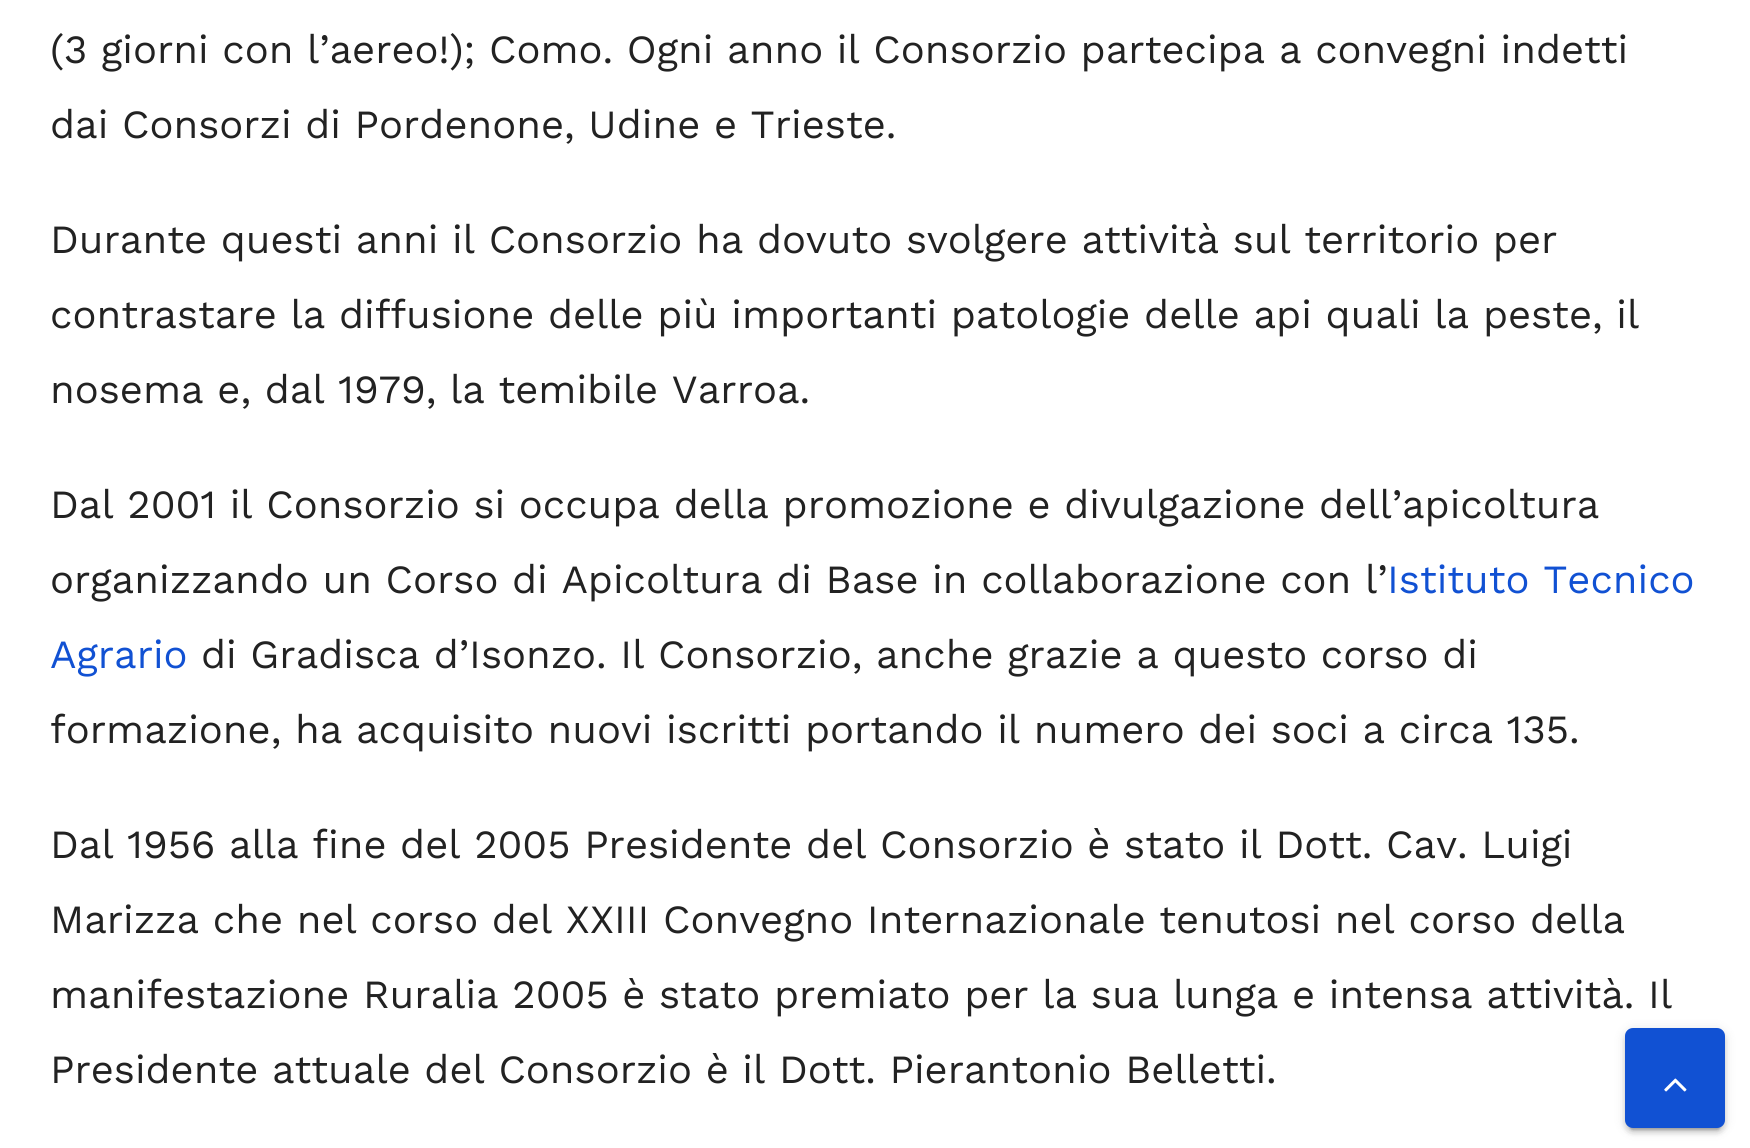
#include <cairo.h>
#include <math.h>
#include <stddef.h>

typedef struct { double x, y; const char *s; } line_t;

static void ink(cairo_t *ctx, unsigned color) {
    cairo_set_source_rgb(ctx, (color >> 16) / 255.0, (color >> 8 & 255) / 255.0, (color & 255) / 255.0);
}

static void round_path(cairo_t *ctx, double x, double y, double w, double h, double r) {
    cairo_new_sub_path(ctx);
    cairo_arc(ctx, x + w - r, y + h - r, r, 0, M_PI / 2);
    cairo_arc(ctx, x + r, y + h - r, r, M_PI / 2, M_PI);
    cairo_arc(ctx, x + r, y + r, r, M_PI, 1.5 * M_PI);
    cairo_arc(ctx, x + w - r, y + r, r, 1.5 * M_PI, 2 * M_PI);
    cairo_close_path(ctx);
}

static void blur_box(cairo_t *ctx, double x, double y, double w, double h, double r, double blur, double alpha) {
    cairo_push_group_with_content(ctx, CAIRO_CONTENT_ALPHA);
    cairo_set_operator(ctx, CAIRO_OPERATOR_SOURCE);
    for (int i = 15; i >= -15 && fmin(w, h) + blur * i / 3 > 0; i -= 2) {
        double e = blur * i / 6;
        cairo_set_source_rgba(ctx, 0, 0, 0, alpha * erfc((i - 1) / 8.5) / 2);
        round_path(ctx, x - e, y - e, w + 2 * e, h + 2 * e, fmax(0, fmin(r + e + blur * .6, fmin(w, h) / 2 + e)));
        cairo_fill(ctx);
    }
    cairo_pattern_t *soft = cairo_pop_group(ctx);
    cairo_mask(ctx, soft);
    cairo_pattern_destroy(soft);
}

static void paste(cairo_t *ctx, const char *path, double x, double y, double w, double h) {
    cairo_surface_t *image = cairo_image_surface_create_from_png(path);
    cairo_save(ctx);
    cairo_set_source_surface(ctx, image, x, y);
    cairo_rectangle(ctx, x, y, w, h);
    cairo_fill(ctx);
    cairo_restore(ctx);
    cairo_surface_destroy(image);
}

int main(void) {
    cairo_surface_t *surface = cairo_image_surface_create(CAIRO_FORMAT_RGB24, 1750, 1148);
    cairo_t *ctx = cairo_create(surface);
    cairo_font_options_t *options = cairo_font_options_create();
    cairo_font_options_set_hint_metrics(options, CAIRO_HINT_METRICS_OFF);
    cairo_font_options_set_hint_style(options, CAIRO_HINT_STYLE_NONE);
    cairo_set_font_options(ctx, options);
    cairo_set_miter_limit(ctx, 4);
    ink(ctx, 0xFFFFFF);
    cairo_paint(ctx);
    cairo_select_font_face(ctx, "Work Sans", CAIRO_FONT_SLANT_NORMAL, CAIRO_FONT_WEIGHT_NORMAL);
    cairo_set_font_size(ctx, 40);
    ink(ctx, 0x222222);
    {
        static const line_t items[] = {
            {50, 63, "(3 giorni con l’aereo!); Como. Ogni anno il Consorzio partecipa a convegni indetti"},
            {50, 138, "dai Consorzi di Pordenone, Udine e Trieste."},
            {50, 253, "Durante questi anni il Consorzio ha dovuto svolgere attività sul territorio per"},
            {50, 328, "contrastare la diffusione delle più importanti patologie delle api quali la peste, il"},
            {50, 403, "nosema e, dal 1979, la temibile Varroa."},
            {50, 518, "Dal 2001 il Consorzio si occupa della promozione e divulgazione dell’apicoltura"},
            {50, 593, "organizzando un Corso di Apicoltura di Base in collaborazione con l’"},
        };
        for (size_t i = 0; i < sizeof items / sizeof *items; i++) {
            cairo_move_to(ctx, items[i].x, items[i].y);
            cairo_show_text(ctx, items[i].s);
        }
    }
    ink(ctx, 0x1151D3);
    cairo_move_to(ctx, 1387, 593);
    cairo_show_text(ctx, "Istituto Tecnico");
    cairo_move_to(ctx, 50, 668);
    cairo_show_text(ctx, "Agrario");
    ink(ctx, 0x222222);
    {
        static const line_t items[] = {
            {201, 668, "di Gradisca d’Isonzo. Il Consorzio, anche grazie a questo corso di"},
            {50, 743, "formazione, ha acquisito nuovi iscritti portando il numero dei soci a circa 135."},
            {50, 858, "Dal 1956 alla fine del 2005 Presidente del Consorzio è stato il Dott. Cav. Luigi"},
            {50, 933, "Marizza che nel corso del XXIII Convegno Internazionale tenutosi nel corso della"},
            {50, 1008, "manifestazione Ruralia 2005 è stato premiato per la sua lunga e intensa attività. Il"},
            {50, 1083, "Presidente attuale del Consorzio è il Dott. Pierantonio Belletti."},
        };
        for (size_t i = 0; i < sizeof items / sizeof *items; i++) {
            cairo_move_to(ctx, items[i].x, items[i].y);
            cairo_show_text(ctx, items[i].s);
        }
    }
    ink(ctx, 0x000000);
    blur_box(ctx, 1625, 1030, 100, 100, 8, 6, 0.12);
    blur_box(ctx, 1630, 1040, 90, 90, 2.5, 1, 0.2);
    blur_box(ctx, 1625, 1033, 100, 100, 8, 2.5, 0.14);
    ink(ctx, 0x1151D3);
    round_path(ctx, 1627.5, 1030.5, 95, 95, 5.5);
    cairo_fill_preserve(ctx);
    cairo_set_line_width(ctx, 5);
    cairo_stroke(ctx);
    paste(ctx, "media/1.png", 1664, 1078, 23, 14);
    cairo_surface_write_to_png(surface, "image.png");
    cairo_font_options_destroy(options);
    cairo_destroy(ctx);
    cairo_surface_destroy(surface);
    return 0;
}
